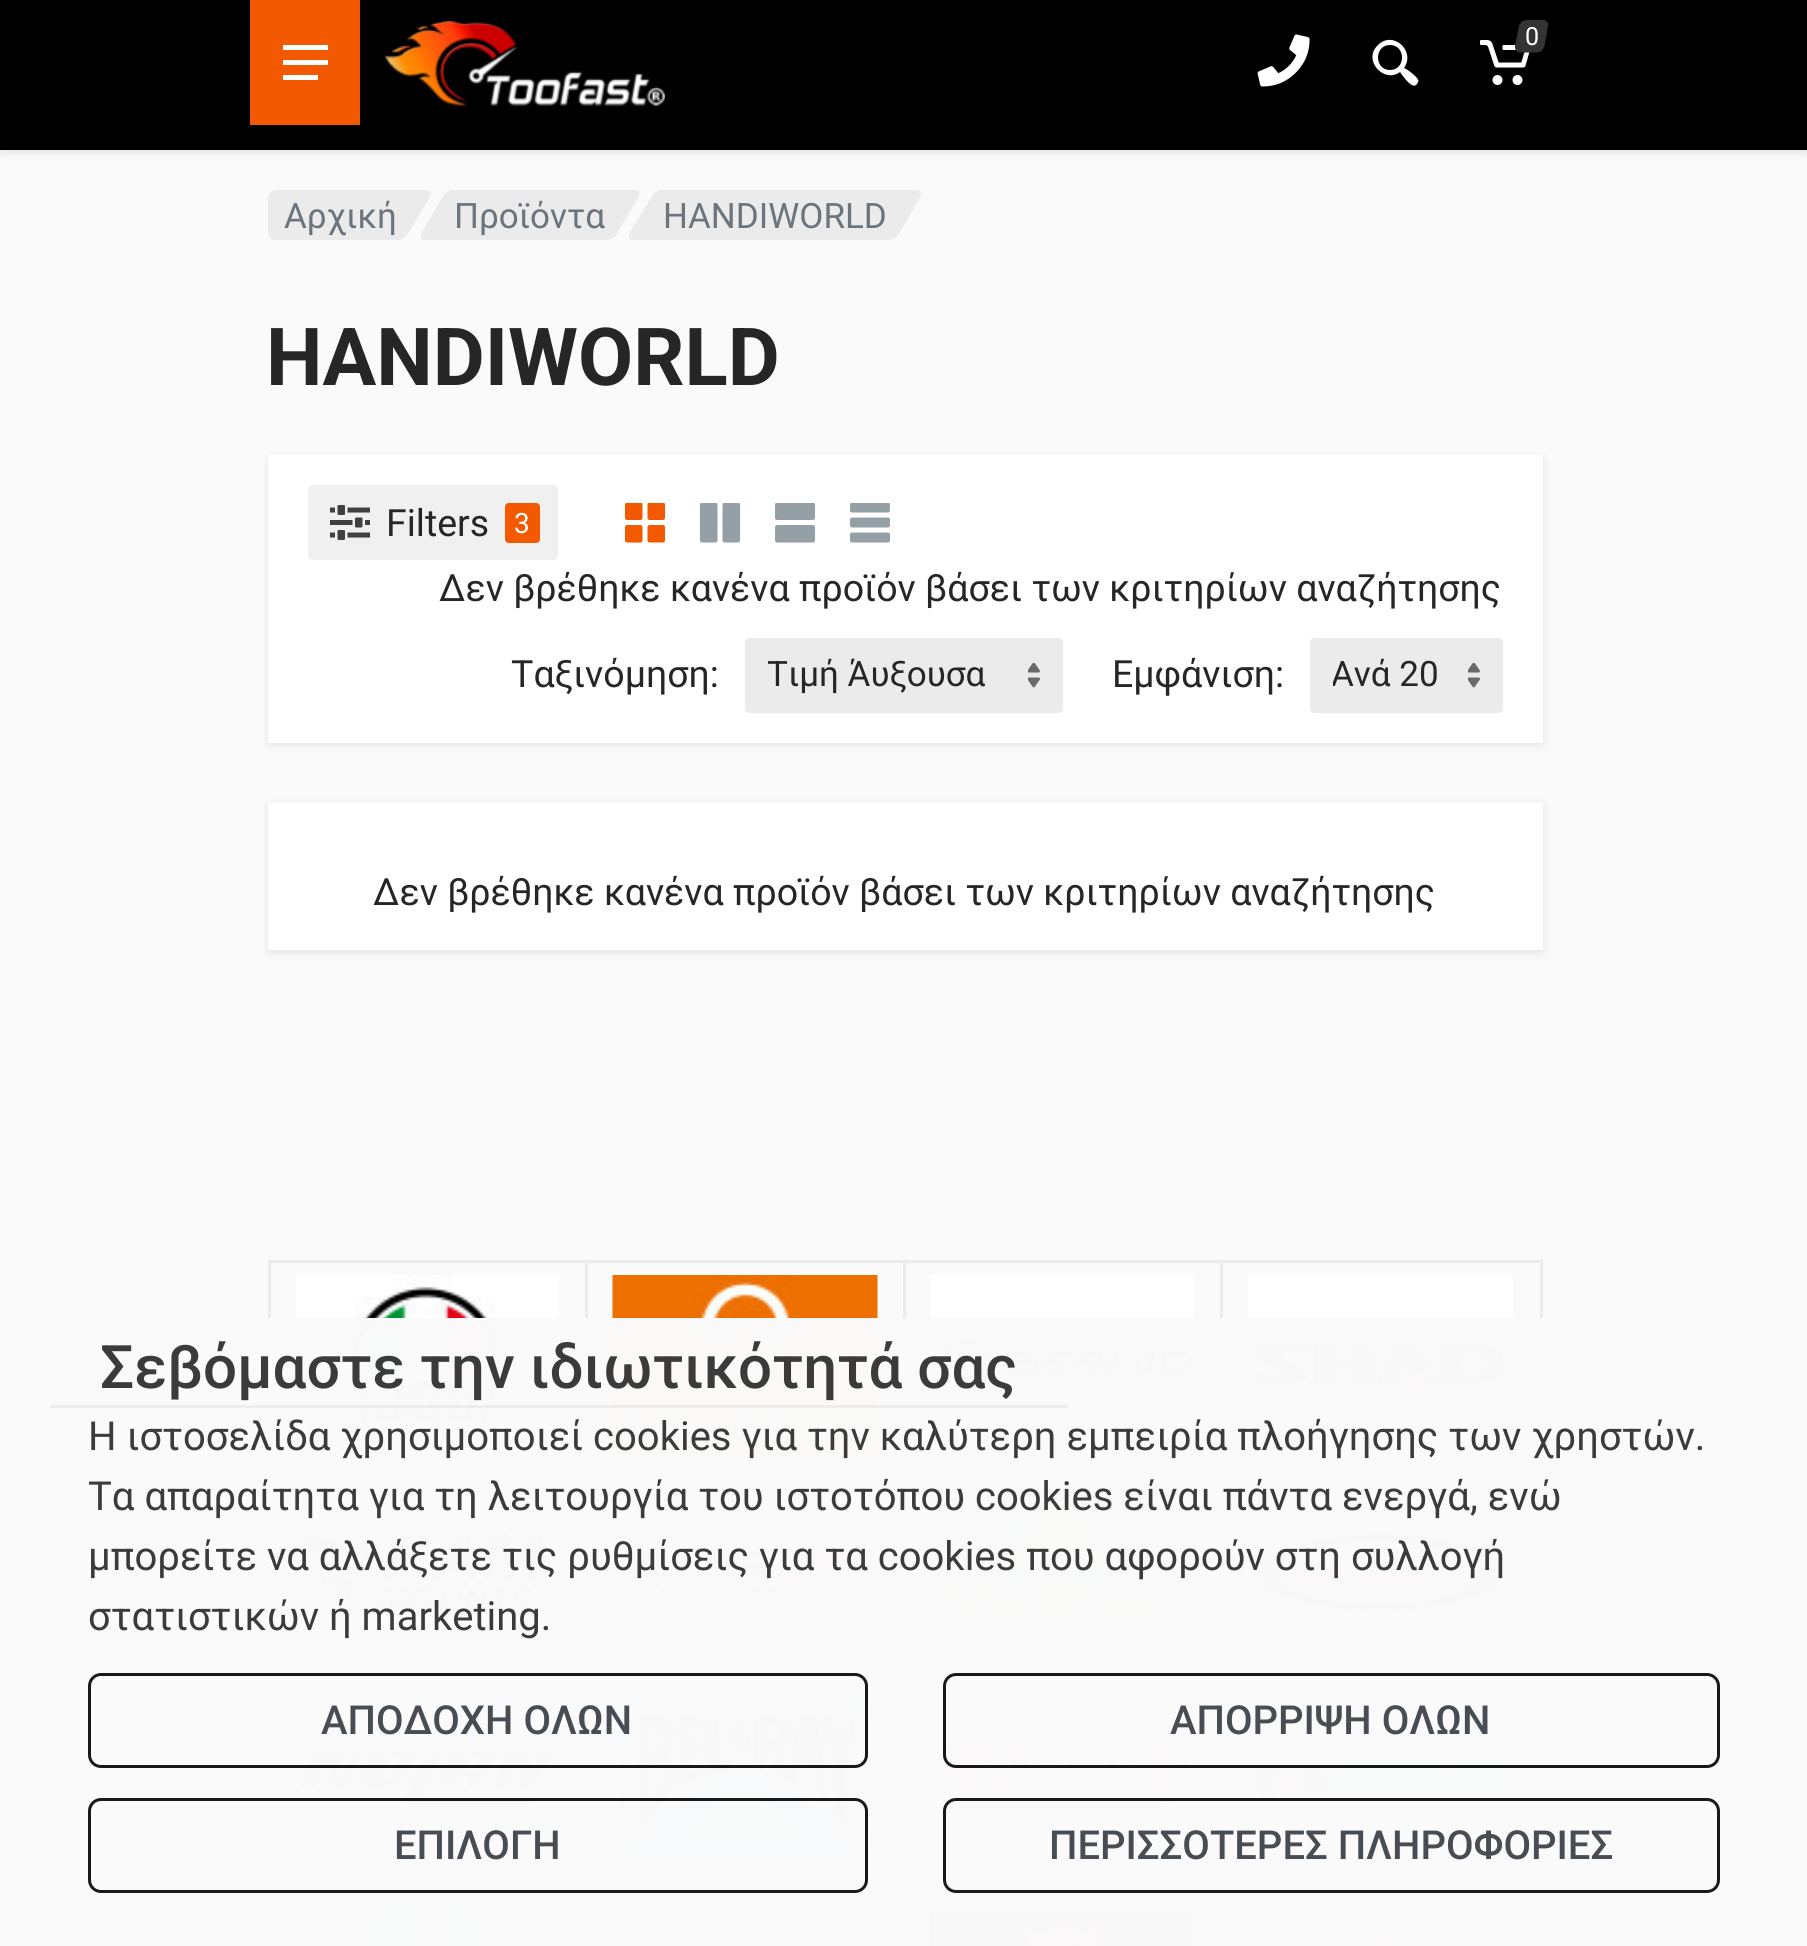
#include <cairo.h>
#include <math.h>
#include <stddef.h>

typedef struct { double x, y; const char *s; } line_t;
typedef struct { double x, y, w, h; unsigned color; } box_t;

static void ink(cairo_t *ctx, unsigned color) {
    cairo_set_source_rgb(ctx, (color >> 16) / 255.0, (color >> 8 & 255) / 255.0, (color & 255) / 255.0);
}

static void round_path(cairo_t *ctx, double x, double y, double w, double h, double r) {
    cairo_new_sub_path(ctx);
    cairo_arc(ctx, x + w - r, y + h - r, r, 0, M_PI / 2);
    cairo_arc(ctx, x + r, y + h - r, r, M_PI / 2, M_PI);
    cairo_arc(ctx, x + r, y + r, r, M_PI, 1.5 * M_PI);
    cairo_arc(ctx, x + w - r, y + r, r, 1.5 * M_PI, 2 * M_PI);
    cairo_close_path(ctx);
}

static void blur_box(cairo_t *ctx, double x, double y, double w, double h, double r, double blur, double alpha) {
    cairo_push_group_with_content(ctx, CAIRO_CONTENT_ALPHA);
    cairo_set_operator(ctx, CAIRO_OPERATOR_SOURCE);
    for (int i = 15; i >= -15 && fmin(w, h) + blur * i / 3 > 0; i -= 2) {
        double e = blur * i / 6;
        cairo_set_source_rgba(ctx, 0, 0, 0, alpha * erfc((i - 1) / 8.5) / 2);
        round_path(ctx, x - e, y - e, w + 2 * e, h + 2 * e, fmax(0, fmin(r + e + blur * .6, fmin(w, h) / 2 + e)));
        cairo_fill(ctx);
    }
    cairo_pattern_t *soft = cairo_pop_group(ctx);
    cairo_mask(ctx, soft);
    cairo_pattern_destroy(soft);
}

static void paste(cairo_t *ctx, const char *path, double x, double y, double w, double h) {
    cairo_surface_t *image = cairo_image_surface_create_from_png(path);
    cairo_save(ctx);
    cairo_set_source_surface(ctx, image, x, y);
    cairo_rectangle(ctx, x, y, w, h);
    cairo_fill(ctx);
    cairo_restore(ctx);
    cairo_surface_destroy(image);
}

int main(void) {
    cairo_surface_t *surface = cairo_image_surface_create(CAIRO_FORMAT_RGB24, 1807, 1946);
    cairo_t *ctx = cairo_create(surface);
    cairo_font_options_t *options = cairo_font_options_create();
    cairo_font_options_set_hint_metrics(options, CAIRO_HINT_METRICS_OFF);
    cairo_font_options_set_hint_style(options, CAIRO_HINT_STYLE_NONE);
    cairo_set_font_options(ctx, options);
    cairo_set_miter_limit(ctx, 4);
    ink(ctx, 0xFAFAFA);
    cairo_paint(ctx);
    ink(ctx, 0x000000);
    blur_box(ctx, 0, 3, 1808, 150, 0, 4, 0.09);
    ink(ctx, 0x000000);
    cairo_rectangle(ctx, 0, 0, 1807, 150);
    cairo_fill(ctx);
    ink(ctx, 0xF25900);
    cairo_rectangle(ctx, 250, 0, 110, 125);
    cairo_fill(ctx);
    cairo_save(ctx);
    cairo_rectangle(ctx, 283, 45, 45, 35);
    cairo_clip(ctx);
    ink(ctx, 0xFFFFFF);
    cairo_new_path(ctx);
    cairo_move_to(ctx, 282, 65);
    cairo_line_to(ctx, 282, 60);
    cairo_line_to(ctx, 328, 60);
    cairo_line_to(ctx, 328, 65);
    cairo_close_path(ctx);
    cairo_move_to(ctx, 282, 45);
    cairo_line_to(ctx, 328, 45);
    cairo_line_to(ctx, 328, 50);
    cairo_line_to(ctx, 282, 50);
    cairo_close_path(ctx);
    cairo_move_to(ctx, 318, 80);
    cairo_line_to(ctx, 282, 80);
    cairo_line_to(ctx, 282, 75);
    cairo_line_to(ctx, 318, 75);
    cairo_close_path(ctx);
    cairo_fill(ctx);
    cairo_restore(ctx);
    paste(ctx, "media/1.png", 384, 20, 281, 87);
    paste(ctx, "media/2.png", 1257, 34, 53, 53);
    ink(ctx, 0xFFFFFF);
    cairo_new_path(ctx);
    cairo_move_to(ctx, 1418, 82);
    cairo_curve_to(ctx, 1414, 93, 1403, 76, 1400, 72);
    cairo_curve_to(ctx, 1384, 84, 1362, 60, 1378, 45);
    cairo_curve_to(ctx, 1393, 30, 1416, 51, 1404, 68);
    cairo_curve_to(ctx, 1407, 69, 1421, 79, 1418, 82);
    cairo_close_path(ctx);
    cairo_move_to(ctx, 1390, 45);
    cairo_curve_to(ctx, 1374, 45, 1374, 70, 1390, 70);
    cairo_curve_to(ctx, 1406, 70, 1406, 45, 1390, 45);
    cairo_close_path(ctx);
    cairo_fill(ctx);
    paste(ctx, "media/3.png", 1480, 40, 50, 45);
    ink(ctx, 0x333333);
    cairo_new_path(ctx);
    cairo_move_to(ctx, 1526.5, 20);
    cairo_line_to(ctx, 1543, 20);
    cairo_curve_to(ctx, 1546.5, 20, 1549, 23, 1548, 26);
    cairo_line_to(ctx, 1544.5, 46);
    cairo_curve_to(ctx, 1543.5, 49.5, 1540.5, 52.5, 1537, 52.5);
    cairo_line_to(ctx, 1520.5, 52.5);
    cairo_curve_to(ctx, 1517, 52.5, 1514.5, 49.5, 1515, 46);
    cairo_line_to(ctx, 1519, 26);
    cairo_curve_to(ctx, 1520, 23, 1523, 20, 1526.5, 20);
    cairo_close_path(ctx);
    cairo_fill(ctx);
    cairo_select_font_face(ctx, "Roboto", CAIRO_FONT_SLANT_NORMAL, CAIRO_FONT_WEIGHT_NORMAL);
    cairo_set_font_size(ctx, 25);
    ink(ctx, 0xFFFFFF);
    cairo_move_to(ctx, 1525, 45);
    cairo_show_text(ctx, "0");
    ink(ctx, 0xEBEBEB);
    cairo_new_path(ctx);
    cairo_move_to(ctx, 303, 190);
    cairo_line_to(ctx, 426, 190);
    cairo_curve_to(ctx, 430, 190, 432, 193, 429, 198);
    cairo_line_to(ctx, 409, 232);
    cairo_curve_to(ctx, 407, 237, 401, 240, 397, 240);
    cairo_line_to(ctx, 274, 240);
    cairo_curve_to(ctx, 270, 240, 269, 237, 271, 232);
    cairo_line_to(ctx, 291, 198);
    cairo_curve_to(ctx, 294, 193, 299, 190, 303, 190);
    cairo_close_path(ctx);
    cairo_fill(ctx);
    round_path(ctx, 268, 190, 137, 50, 8);
    cairo_fill(ctx);
    cairo_set_font_size(ctx, 35);
    ink(ctx, 0x6C757D);
    cairo_move_to(ctx, 284, 228);
    cairo_show_text(ctx, "Αρχική");
    ink(ctx, 0xEBEBEB);
    cairo_new_path(ctx);
    cairo_move_to(ctx, 454, 190);
    cairo_line_to(ctx, 635, 190);
    cairo_curve_to(ctx, 639, 190, 641, 193, 638, 198);
    cairo_line_to(ctx, 618, 232);
    cairo_curve_to(ctx, 616, 237, 610, 240, 606, 240);
    cairo_line_to(ctx, 425, 240);
    cairo_curve_to(ctx, 421, 240, 419, 237, 422, 232);
    cairo_line_to(ctx, 442, 198);
    cairo_curve_to(ctx, 444, 193, 449, 190, 454, 190);
    cairo_close_path(ctx);
    cairo_fill(ctx);
    ink(ctx, 0x6C757D);
    cairo_move_to(ctx, 454, 228);
    cairo_show_text(ctx, "Προϊόντα");
    ink(ctx, 0xEBEBEB);
    cairo_new_path(ctx);
    cairo_move_to(ctx, 662, 190);
    cairo_line_to(ctx, 917, 190);
    cairo_curve_to(ctx, 921, 190, 922, 193, 920, 198);
    cairo_line_to(ctx, 900, 232);
    cairo_curve_to(ctx, 897, 237, 892, 240, 888, 240);
    cairo_line_to(ctx, 634, 240);
    cairo_curve_to(ctx, 629, 240, 628, 237, 630, 232);
    cairo_line_to(ctx, 651, 198);
    cairo_curve_to(ctx, 653, 193, 658, 190, 662, 190);
    cairo_close_path(ctx);
    cairo_fill(ctx);
    ink(ctx, 0x6C757D);
    cairo_move_to(ctx, 663, 228);
    cairo_show_text(ctx, "HANDIWORLD");
    cairo_select_font_face(ctx, "Roboto", CAIRO_FONT_SLANT_NORMAL, CAIRO_FONT_WEIGHT_BOLD);
    cairo_set_font_size(ctx, 80);
    ink(ctx, 0x262626);
    cairo_move_to(ctx, 266, 385);
    cairo_show_text(ctx, "HANDIWORLD");
    ink(ctx, 0x000000);
    blur_box(ctx, 268, 458, 1275, 287, 0, 4, 0.09);
    ink(ctx, 0xFFFFFF);
    cairo_rectangle(ctx, 268, 455, 1275, 288);
    cairo_fill(ctx);
    ink(ctx, 0xF0F0F0);
    round_path(ctx, 308, 485, 250, 75, 5);
    cairo_fill(ctx);
    paste(ctx, "media/4.png", 330, 505, 40, 35);
    cairo_select_font_face(ctx, "Roboto", CAIRO_FONT_SLANT_NORMAL, CAIRO_FONT_WEIGHT_NORMAL);
    cairo_set_font_size(ctx, 37.5);
    ink(ctx, 0x262626);
    cairo_move_to(ctx, 386, 536);
    cairo_show_text(ctx, "Filters");
    ink(ctx, 0xF25900);
    round_path(ctx, 505, 503, 35, 40, 4);
    cairo_fill(ctx);
    cairo_set_font_size(ctx, 28);
    ink(ctx, 0xFFFFFF);
    cairo_move_to(ctx, 514, 533);
    cairo_show_text(ctx, "3");
    paste(ctx, "media/5.png", 625, 503, 40, 40);
    paste(ctx, "media/6.png", 700, 503, 40, 40);
    paste(ctx, "media/7.png", 775, 503, 40, 40);
    paste(ctx, "media/8.png", 850, 503, 40, 40);
    cairo_set_font_size(ctx, 37.5);
    ink(ctx, 0x262626);
    cairo_move_to(ctx, 439, 601);
    cairo_show_text(ctx, "Δεν βρέθηκε κανένα προϊόν βάσει των κριτηρίων αναζήτησης");
    cairo_move_to(ctx, 511, 687);
    cairo_show_text(ctx, "Ταξινόμηση:");
    ink(ctx, 0xEBEBEB);
    round_path(ctx, 745, 638, 318, 75, 5);
    cairo_fill(ctx);
    paste(ctx, "media/9.png", 1028, 663, 12, 25);
    round_path(ctx, 746.5, 639.5, 315, 72, 3.5);
    cairo_set_line_width(ctx, 3);
    cairo_stroke(ctx);
    cairo_save(ctx);
    cairo_rectangle(ctx, 768, 653, 235, 42);
    cairo_clip(ctx);
    cairo_set_font_size(ctx, 35);
    ink(ctx, 0x262626);
    cairo_move_to(ctx, 767, 686);
    cairo_show_text(ctx, "Τιμή Άυξουσα");
    cairo_restore(ctx);
    ink(ctx, 0x262626);
    cairo_move_to(ctx, 1112, 687);
    cairo_show_text(ctx, "Εμφάνιση:");
    ink(ctx, 0xEBEBEB);
    round_path(ctx, 1310, 638, 193, 75, 5);
    cairo_fill(ctx);
    paste(ctx, "media/9.png", 1468, 663, 12, 25);
    round_path(ctx, 1311.5, 639.5, 190, 72, 3.5);
    cairo_stroke(ctx);
    cairo_save(ctx);
    cairo_rectangle(ctx, 1333, 653, 110, 42);
    cairo_clip(ctx);
    cairo_set_font_size(ctx, 35);
    ink(ctx, 0x262626);
    cairo_move_to(ctx, 1331, 686);
    cairo_show_text(ctx, "Ανά 20");
    cairo_restore(ctx);
    ink(ctx, 0x000000);
    blur_box(ctx, 268, 805, 1275, 148, 0, 4, 0.09);
    ink(ctx, 0xFFFFFF);
    cairo_rectangle(ctx, 268, 803, 1275, 147);
    cairo_fill(ctx);
    ink(ctx, 0x262626);
    cairo_move_to(ctx, 373, 905);
    cairo_show_text(ctx, "Δεν βρέθηκε κανένα προϊόν βάσει των κριτηρίων αναζήτησης");
    cairo_rectangle(ctx, 269.5, 1261.5, 1272, 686);
    ink(ctx, 0xEBEBEB);
    cairo_stroke(ctx);
    paste(ctx, "media/10.png", 296, 1275, 263, 180);
    cairo_rectangle(ctx, 585, 1263, 3, 205);
    cairo_fill(ctx);
    paste(ctx, "media/11.png", 612, 1275, 266, 180);
    cairo_rectangle(ctx, 903, 1263, 3, 205);
    cairo_fill(ctx);
    paste(ctx, "media/12.png", 931, 1275, 263, 180);
    cairo_rectangle(ctx, 1220, 1263, 3, 205);
    cairo_fill(ctx);
    paste(ctx, "media/13.png", 1248, 1275, 265, 180);
    cairo_rectangle(ctx, 270, 1468, 1270, 3);
    cairo_fill(ctx);
    paste(ctx, "media/14.png", 296, 1483, 263, 179);
    cairo_rectangle(ctx, 585, 1470, 3, 205);
    cairo_fill(ctx);
    paste(ctx, "media/15.png", 613, 1483, 264, 179);
    cairo_rectangle(ctx, 903, 1470, 3, 205);
    cairo_fill(ctx);
    paste(ctx, "media/16.png", 929, 1483, 267, 180);
    cairo_rectangle(ctx, 1220, 1470, 3, 205);
    cairo_fill(ctx);
    paste(ctx, "media/17.png", 1248, 1483, 265, 179);
    cairo_rectangle(ctx, 270, 1675, 1270, 3);
    cairo_fill(ctx);
    paste(ctx, "media/18.png", 295, 1690, 264, 180);
    cairo_rectangle(ctx, 585, 1678, 3, 205);
    cairo_fill(ctx);
    paste(ctx, "media/19.png", 612, 1690, 265, 180);
    cairo_rectangle(ctx, 903, 1678, 3, 205);
    cairo_fill(ctx);
    paste(ctx, "media/20.png", 930, 1690, 264, 180);
    cairo_rectangle(ctx, 1220, 1678, 3, 205);
    cairo_fill(ctx);
    paste(ctx, "media/21.png", 1248, 1709, 265, 142);
    cairo_rectangle(ctx, 270, 1883, 1270, 3);
    cairo_fill(ctx);
    paste(ctx, "media/22.png", 296, 1898, 263, 48);
    {
        static const box_t items[] = {
            {585, 1885, 3, 61, 0xEBEBEB},
            {613, 1898, 264, 48, 0xFFFFFF},
            {903, 1885, 3, 61, 0xEBEBEB},
        };
        for (size_t i = 0; i < sizeof items / sizeof *items; i++) {
            ink(ctx, items[i].color);
            cairo_rectangle(ctx, items[i].x, items[i].y, items[i].w, items[i].h);
            cairo_fill(ctx);
        }
    }
    paste(ctx, "media/23.png", 929, 1909, 267, 37);
    cairo_rectangle(ctx, 1220, 1885, 3, 61);
    cairo_fill(ctx);
    paste(ctx, "media/24.png", 1248, 1898, 265, 48);
    cairo_set_source_rgba(ctx, 0.8, 0.8, 0.8, 0.9);
    cairo_rectangle(ctx, 0, 1318, 1807, 628);
    cairo_fill(ctx);
    cairo_set_source_rgba(ctx, 1, 1, 1, 0.9);
    cairo_rectangle(ctx, 0, 1318, 1807, 628);
    cairo_fill(ctx);
    cairo_set_source_rgba(ctx, 0.922, 0.922, 0.922, 0.9);
    cairo_rectangle(ctx, 50, 1405, 1018, 3);
    cairo_fill(ctx);
    cairo_select_font_face(ctx, "Roboto Medium", CAIRO_FONT_SLANT_NORMAL, CAIRO_FONT_WEIGHT_NORMAL);
    cairo_set_font_size(ctx, 60);
    ink(ctx, 0x3B3B3B);
    cairo_move_to(ctx, 100, 1388);
    cairo_show_text(ctx, "Σεβόμαστε την ιδιωτικότητά σας");
    cairo_select_font_face(ctx, "Roboto", CAIRO_FONT_SLANT_NORMAL, CAIRO_FONT_WEIGHT_NORMAL);
    cairo_set_font_size(ctx, 40);
    {
        static const line_t items[] = {
            {88, 1450, "Η ιστοσελίδα χρησιμοποιεί cookies για την καλύτερη εμπειρία πλοήγησης των χρηστών."},
            {88, 1510, "Τα απαραίτητα για τη λειτουργία του ιστοτόπου cookies είναι πάντα ενεργά, ενώ"},
            {88, 1570, "μπορείτε να αλλάξετε τις ρυθμίσεις για τα cookies που αφορούν στη συλλογή"},
            {88, 1630, "στατιστικών ή marketing."},
        };
        for (size_t i = 0; i < sizeof items / sizeof *items; i++) {
            cairo_move_to(ctx, items[i].x, items[i].y);
            cairo_show_text(ctx, items[i].s);
        }
    }
    round_path(ctx, 89.5, 1674.5, 777, 92, 11.5);
    cairo_set_source_rgba(ctx, 0, 0, 0, 0.9);
    cairo_stroke(ctx);
    cairo_select_font_face(ctx, "Roboto Medium", CAIRO_FONT_SLANT_NORMAL, CAIRO_FONT_WEIGHT_NORMAL);
    ink(ctx, 0x484D53);
    cairo_move_to(ctx, 321, 1734);
    cairo_show_text(ctx, "ΑΠΟΔΟΧΗ ΟΛΩΝ");
    round_path(ctx, 944.5, 1674.5, 774, 92, 11.5);
    cairo_set_source_rgba(ctx, 0, 0, 0, 0.9);
    cairo_stroke(ctx);
    ink(ctx, 0x484D53);
    cairo_move_to(ctx, 1170, 1734);
    cairo_show_text(ctx, "ΑΠΟΡΡΙΨΗ ΟΛΩΝ");
    round_path(ctx, 89.5, 1799.5, 777, 92, 11.5);
    cairo_set_source_rgba(ctx, 0, 0, 0, 0.9);
    cairo_stroke(ctx);
    ink(ctx, 0x484D53);
    cairo_move_to(ctx, 394, 1859);
    cairo_show_text(ctx, "ΕΠΙΛΟΓΗ");
    round_path(ctx, 944.5, 1799.5, 774, 92, 11.5);
    ink(ctx, 0x191919);
    cairo_stroke(ctx);
    ink(ctx, 0x484D53);
    cairo_move_to(ctx, 1049, 1859);
    cairo_show_text(ctx, "ΠΕΡΙΣΣΟΤΕΡΕΣ ΠΛΗΡΟΦΟΡΙΕΣ");
    cairo_surface_write_to_png(surface, "image.png");
    cairo_font_options_destroy(options);
    cairo_destroy(ctx);
    cairo_surface_destroy(surface);
    return 0;
}
